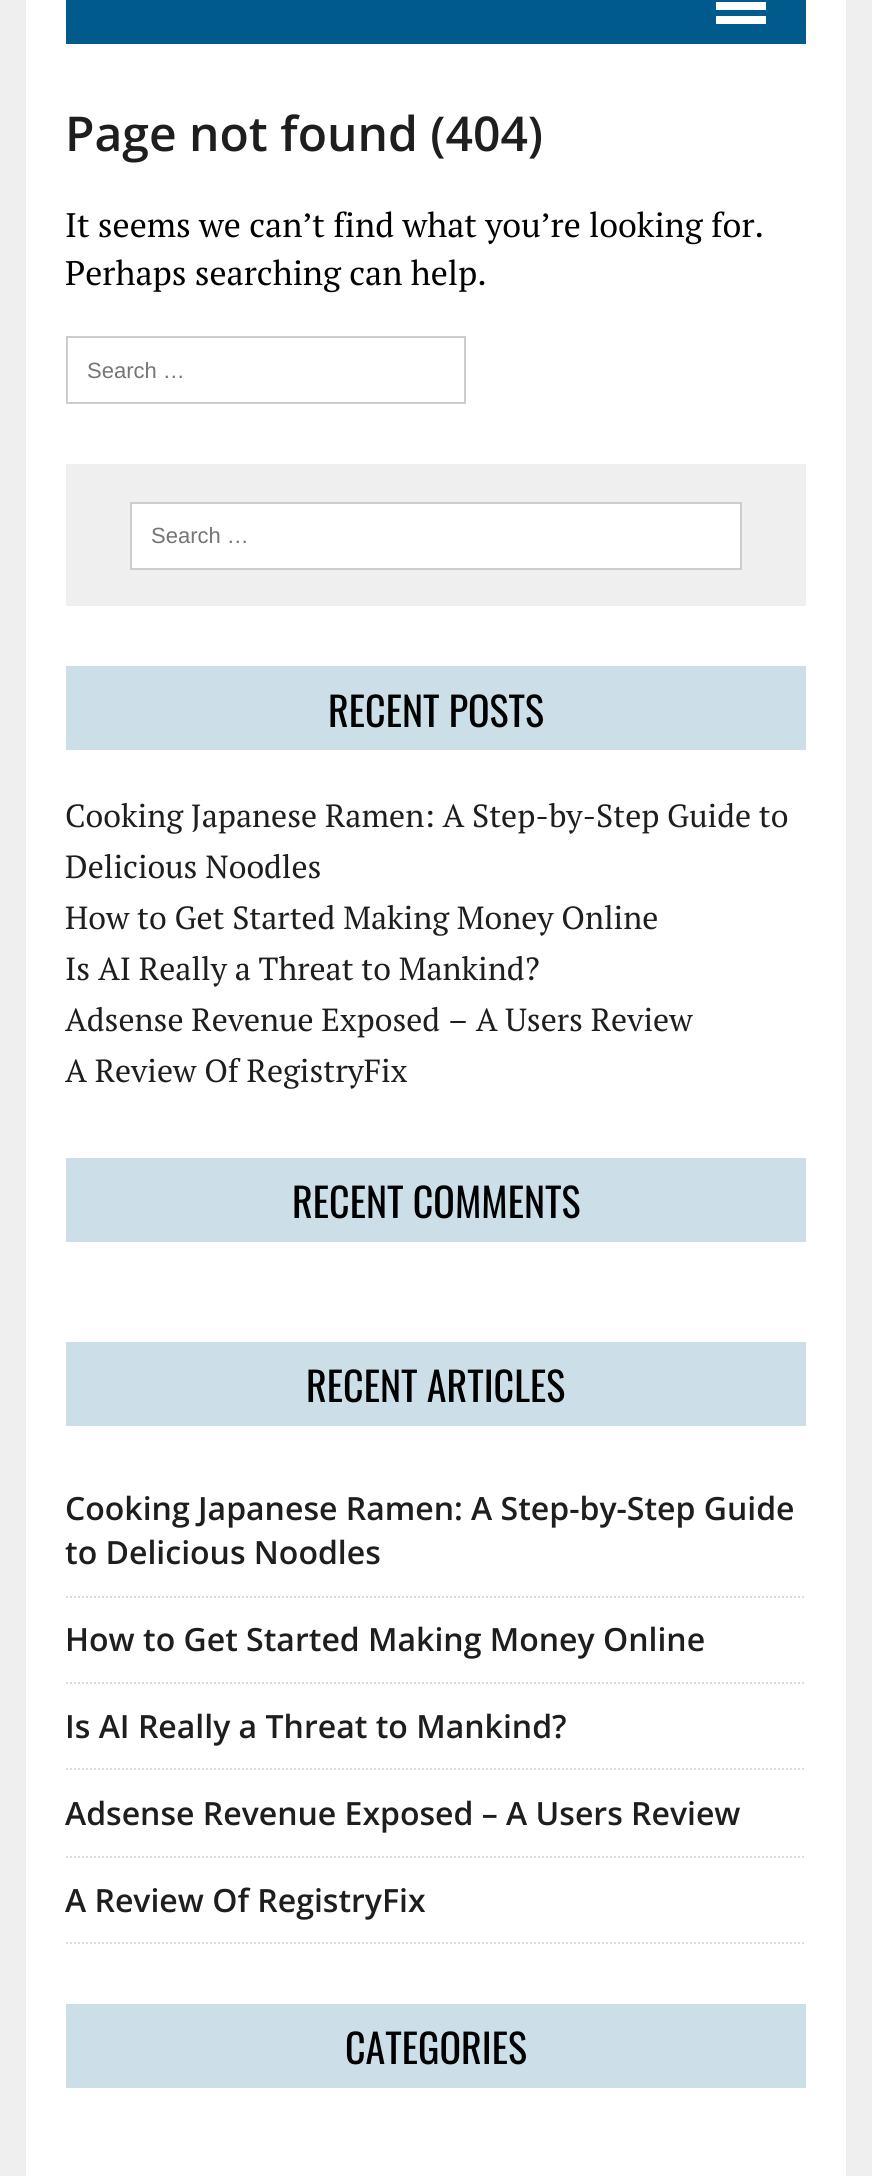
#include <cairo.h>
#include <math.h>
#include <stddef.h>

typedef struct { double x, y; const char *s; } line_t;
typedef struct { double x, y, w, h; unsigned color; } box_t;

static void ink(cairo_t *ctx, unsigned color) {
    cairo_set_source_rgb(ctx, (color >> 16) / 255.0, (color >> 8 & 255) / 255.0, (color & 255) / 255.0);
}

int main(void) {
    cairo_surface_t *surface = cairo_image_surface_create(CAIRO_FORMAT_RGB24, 872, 2176);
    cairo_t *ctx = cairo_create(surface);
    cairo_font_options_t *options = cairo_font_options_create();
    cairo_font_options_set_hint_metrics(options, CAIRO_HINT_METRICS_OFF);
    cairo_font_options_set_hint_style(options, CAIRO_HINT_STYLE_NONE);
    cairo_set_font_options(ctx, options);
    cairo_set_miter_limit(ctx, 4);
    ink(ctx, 0xEFEFEF);
    cairo_paint(ctx);
    {
        static const box_t items[] = {
            {26, 0, 820, 2176, 0xFFFFFF},
            {66, 0, 740, 44, 0x005A8C},
            {716, 2, 50, 8, 0xFFFFFF},
            {716, 16, 50, 8, 0xFFFFFF},
        };
        for (size_t i = 0; i < sizeof items / sizeof *items; i++) {
            ink(ctx, items[i].color);
            cairo_rectangle(ctx, items[i].x, items[i].y, items[i].w, items[i].h);
            cairo_fill(ctx);
        }
    }
    cairo_select_font_face(ctx, "Open Sans SemiBold", CAIRO_FONT_SLANT_NORMAL, CAIRO_FONT_WEIGHT_NORMAL);
    cairo_set_font_size(ctx, 48);
    ink(ctx, 0x1F1E1E);
    cairo_move_to(ctx, 65, 151);
    cairo_show_text(ctx, "Page not found (404)");
    cairo_select_font_face(ctx, "PT Serif", CAIRO_FONT_SLANT_NORMAL, CAIRO_FONT_WEIGHT_NORMAL);
    cairo_set_font_size(ctx, 34);
    ink(ctx, 0x000000);
    cairo_move_to(ctx, 65, 237);
    cairo_show_text(ctx, "It seems we can’t find what you’re looking for.");
    cairo_move_to(ctx, 65, 285);
    cairo_show_text(ctx, "Perhaps searching can help.");
    cairo_rectangle(ctx, 67, 337, 398, 66);
    ink(ctx, 0xCDCDCD);
    cairo_stroke(ctx);
    cairo_select_font_face(ctx, "Liberation Sans", CAIRO_FONT_SLANT_NORMAL, CAIRO_FONT_WEIGHT_NORMAL);
    cairo_set_font_size(ctx, 22);
    ink(ctx, 0x757575);
    cairo_move_to(ctx, 87, 378);
    cairo_show_text(ctx, "Search …");
    ink(ctx, 0xEFEFEF);
    cairo_rectangle(ctx, 66, 464, 740, 142);
    cairo_fill(ctx);
    ink(ctx, 0xFFFFFF);
    cairo_rectangle(ctx, 131, 503, 610, 66);
    cairo_fill_preserve(ctx);
    ink(ctx, 0xCDCDCD);
    cairo_stroke(ctx);
    ink(ctx, 0x757575);
    cairo_move_to(ctx, 151, 543);
    cairo_show_text(ctx, "Search …");
    ink(ctx, 0xCCDEE8);
    cairo_rectangle(ctx, 66, 666, 740, 84);
    cairo_fill(ctx);
    cairo_select_font_face(ctx, "Oswald", CAIRO_FONT_SLANT_NORMAL, CAIRO_FONT_WEIGHT_NORMAL);
    cairo_set_font_size(ctx, 40);
    ink(ctx, 0x000000);
    cairo_move_to(ctx, 328, 727);
    cairo_show_text(ctx, "RECENT POSTS");
    cairo_select_font_face(ctx, "PT Serif", CAIRO_FONT_SLANT_NORMAL, CAIRO_FONT_WEIGHT_NORMAL);
    cairo_set_font_size(ctx, 32);
    ink(ctx, 0x1F1E1E);
    {
        static const line_t items[] = {
            {65, 827, "Cooking Japanese Ramen: A Step-by-Step Guide to"},
            {65, 878, "Delicious Noodles"},
            {65, 929, "How to Get Started Making Money Online"},
            {65, 980, "Is AI Really a Threat to Mankind?"},
            {65, 1031, "Adsense Revenue Exposed – A Users Review"},
            {65, 1082, "A Review Of RegistryFix"},
        };
        for (size_t i = 0; i < sizeof items / sizeof *items; i++) {
            cairo_move_to(ctx, items[i].x, items[i].y);
            cairo_show_text(ctx, items[i].s);
        }
    }
    ink(ctx, 0xCCDEE8);
    cairo_rectangle(ctx, 66, 1158, 740, 84);
    cairo_fill(ctx);
    cairo_select_font_face(ctx, "Oswald", CAIRO_FONT_SLANT_NORMAL, CAIRO_FONT_WEIGHT_NORMAL);
    cairo_set_font_size(ctx, 40);
    ink(ctx, 0x000000);
    cairo_move_to(ctx, 292, 1218);
    cairo_show_text(ctx, "RECENT COMMENTS");
    ink(ctx, 0xCCDEE8);
    cairo_rectangle(ctx, 66, 1342, 740, 84);
    cairo_fill(ctx);
    ink(ctx, 0x000000);
    cairo_move_to(ctx, 306, 1402);
    cairo_show_text(ctx, "RECENT ARTICLES");
    cairo_new_path(ctx);
    cairo_move_to(ctx, 66, 1597);
    cairo_line_to(ctx, 806, 1597);
    ink(ctx, 0xDCDCDC);
    cairo_set_dash(ctx, (double[]){2, 2}, 2, 0);
    cairo_stroke(ctx);
    cairo_select_font_face(ctx, "Open Sans SemiBold", CAIRO_FONT_SLANT_NORMAL, CAIRO_FONT_WEIGHT_NORMAL);
    cairo_set_font_size(ctx, 32);
    ink(ctx, 0x1F1E1E);
    cairo_move_to(ctx, 65, 1520);
    cairo_show_text(ctx, "Cooking Japanese Ramen: A Step-by-Step Guide");
    cairo_move_to(ctx, 65, 1564);
    cairo_show_text(ctx, "to Delicious Noodles");
    cairo_new_path(ctx);
    cairo_move_to(ctx, 66, 1683);
    cairo_line_to(ctx, 806, 1683);
    ink(ctx, 0xDCDCDC);
    cairo_stroke(ctx);
    ink(ctx, 0x1F1E1E);
    cairo_move_to(ctx, 65, 1651);
    cairo_show_text(ctx, "How to Get Started Making Money Online");
    cairo_new_path(ctx);
    cairo_move_to(ctx, 66, 1769);
    cairo_line_to(ctx, 806, 1769);
    ink(ctx, 0xDCDCDC);
    cairo_stroke(ctx);
    ink(ctx, 0x1F1E1E);
    cairo_move_to(ctx, 65, 1738);
    cairo_show_text(ctx, "Is AI Really a Threat to Mankind?");
    cairo_new_path(ctx);
    cairo_move_to(ctx, 66, 1857);
    cairo_line_to(ctx, 806, 1857);
    ink(ctx, 0xDCDCDC);
    cairo_stroke(ctx);
    ink(ctx, 0x1F1E1E);
    cairo_move_to(ctx, 65, 1825);
    cairo_show_text(ctx, "Adsense Revenue Exposed – A Users Review");
    cairo_new_path(ctx);
    cairo_move_to(ctx, 66, 1943);
    cairo_line_to(ctx, 806, 1943);
    ink(ctx, 0xDCDCDC);
    cairo_stroke(ctx);
    ink(ctx, 0x1F1E1E);
    cairo_move_to(ctx, 65, 1912);
    cairo_show_text(ctx, "A Review Of RegistryFix");
    ink(ctx, 0xCCDEE8);
    cairo_rectangle(ctx, 66, 2004, 740, 84);
    cairo_fill(ctx);
    cairo_select_font_face(ctx, "Oswald", CAIRO_FONT_SLANT_NORMAL, CAIRO_FONT_WEIGHT_NORMAL);
    cairo_set_font_size(ctx, 40);
    ink(ctx, 0x000000);
    cairo_move_to(ctx, 345, 2064);
    cairo_show_text(ctx, "CATEGORIES");
    cairo_surface_write_to_png(surface, "image.png");
    cairo_font_options_destroy(options);
    cairo_destroy(ctx);
    cairo_surface_destroy(surface);
    return 0;
}
